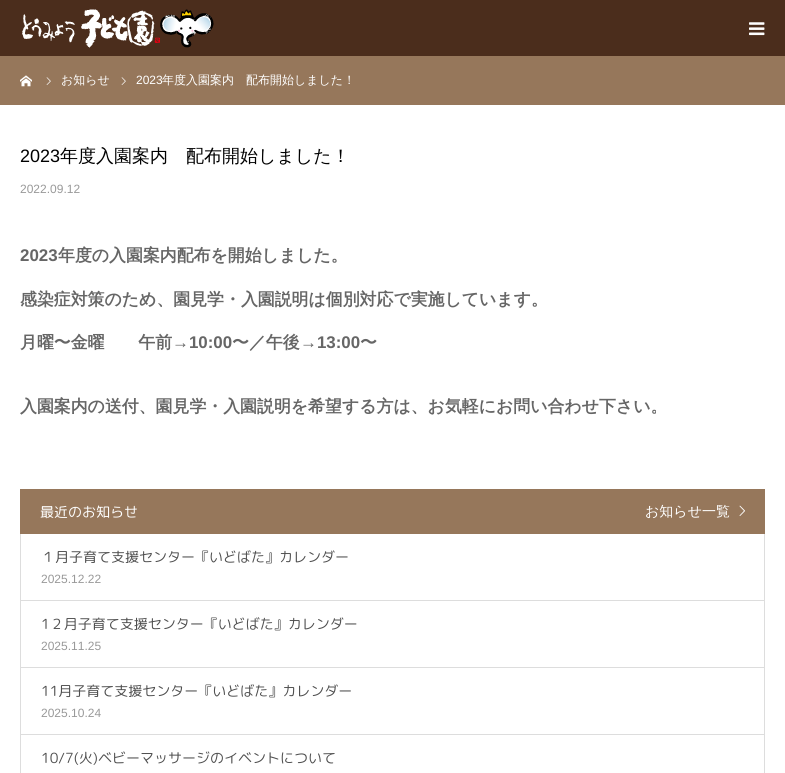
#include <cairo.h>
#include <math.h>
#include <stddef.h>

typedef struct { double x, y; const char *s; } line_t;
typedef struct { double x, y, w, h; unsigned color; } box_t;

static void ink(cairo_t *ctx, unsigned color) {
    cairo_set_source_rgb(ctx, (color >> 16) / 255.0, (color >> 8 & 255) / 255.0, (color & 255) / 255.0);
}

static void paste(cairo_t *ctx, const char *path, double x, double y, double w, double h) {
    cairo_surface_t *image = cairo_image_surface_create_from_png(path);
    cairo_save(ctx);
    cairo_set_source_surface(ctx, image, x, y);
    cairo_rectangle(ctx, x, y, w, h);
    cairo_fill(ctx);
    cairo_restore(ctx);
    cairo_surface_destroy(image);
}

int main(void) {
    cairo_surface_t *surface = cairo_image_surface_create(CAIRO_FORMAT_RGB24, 785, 773);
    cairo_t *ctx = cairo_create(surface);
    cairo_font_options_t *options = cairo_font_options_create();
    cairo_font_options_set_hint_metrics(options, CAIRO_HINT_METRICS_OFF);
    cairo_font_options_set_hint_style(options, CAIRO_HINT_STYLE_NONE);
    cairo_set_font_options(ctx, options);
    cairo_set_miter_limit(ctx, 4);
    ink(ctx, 0xFFFFFF);
    cairo_paint(ctx);
    ink(ctx, 0x4B2D1C);
    cairo_rectangle(ctx, 0, 0, 785, 56);
    cairo_fill(ctx);
    paste(ctx, "media/1.png", 22, 9, 192, 39);
    paste(ctx, "media/2.png", 749, 22, 16, 14);
    ink(ctx, 0x96775B);
    cairo_rectangle(ctx, 0, 56, 785, 49);
    cairo_fill(ctx);
    paste(ctx, "media/3.png", 20, 75, 12, 12);
    paste(ctx, "media/4.png", 46, 77, 5, 8);
    cairo_select_font_face(ctx, "WenQuanYi Zen Hei Medium", CAIRO_FONT_SLANT_NORMAL, CAIRO_FONT_WEIGHT_NORMAL);
    cairo_set_font_size(ctx, 12);
    ink(ctx, 0xFFFFFF);
    cairo_move_to(ctx, 61, 84);
    cairo_show_text(ctx, "お知らせ");
    paste(ctx, "media/4.png", 121, 77, 5, 8);
    cairo_select_font_face(ctx, "Liberation Sans", CAIRO_FONT_SLANT_NORMAL, CAIRO_FONT_WEIGHT_NORMAL);
    cairo_move_to(ctx, 136, 84);
    cairo_show_text(ctx, "2023");
    cairo_select_font_face(ctx, "WenQuanYi Zen Hei Medium", CAIRO_FONT_SLANT_NORMAL, CAIRO_FONT_WEIGHT_NORMAL);
    cairo_move_to(ctx, 162, 84);
    cairo_show_text(ctx, "年度入園案内　配布開始しました！");
    cairo_select_font_face(ctx, "Liberation Sans", CAIRO_FONT_SLANT_NORMAL, CAIRO_FONT_WEIGHT_NORMAL);
    cairo_set_font_size(ctx, 18);
    ink(ctx, 0x000000);
    cairo_move_to(ctx, 20, 162);
    cairo_show_text(ctx, "2023");
    cairo_select_font_face(ctx, "WenQuanYi Zen Hei Medium", CAIRO_FONT_SLANT_NORMAL, CAIRO_FONT_WEIGHT_NORMAL);
    cairo_move_to(ctx, 60, 162);
    cairo_show_text(ctx, "年度入園案内　配布開始しました！");
    cairo_select_font_face(ctx, "Liberation Sans", CAIRO_FONT_SLANT_NORMAL, CAIRO_FONT_WEIGHT_NORMAL);
    cairo_set_font_size(ctx, 12);
    ink(ctx, 0x999999);
    cairo_move_to(ctx, 20, 193);
    cairo_show_text(ctx, "2022.09.12");
    cairo_select_font_face(ctx, "Liberation Sans", CAIRO_FONT_SLANT_NORMAL, CAIRO_FONT_WEIGHT_BOLD);
    cairo_set_font_size(ctx, 16.9);
    ink(ctx, 0x666666);
    cairo_move_to(ctx, 20, 261);
    cairo_show_text(ctx, "2023");
    cairo_select_font_face(ctx, "WenQuanYi Zen Hei", CAIRO_FONT_SLANT_NORMAL, CAIRO_FONT_WEIGHT_BOLD);
    {
        static const line_t items[] = {
            {58, 261, "年度の入園案内配布を開始しました。"},
            {20, 305, "感染症対策のため、園見学・入園説明は個別対応で実施しています。"},
            {20, 348, "月曜〜金曜　　午前"},
        };
        for (size_t i = 0; i < sizeof items / sizeof *items; i++) {
            cairo_move_to(ctx, items[i].x, items[i].y);
            cairo_show_text(ctx, items[i].s);
        }
    }
    cairo_select_font_face(ctx, "Liberation Sans", CAIRO_FONT_SLANT_NORMAL, CAIRO_FONT_WEIGHT_BOLD);
    cairo_move_to(ctx, 172, 348);
    cairo_show_text(ctx, "→10:00");
    cairo_select_font_face(ctx, "WenQuanYi Zen Hei", CAIRO_FONT_SLANT_NORMAL, CAIRO_FONT_WEIGHT_BOLD);
    cairo_move_to(ctx, 232, 348);
    cairo_show_text(ctx, "〜／午後");
    cairo_select_font_face(ctx, "Liberation Sans", CAIRO_FONT_SLANT_NORMAL, CAIRO_FONT_WEIGHT_BOLD);
    cairo_move_to(ctx, 300, 348);
    cairo_show_text(ctx, "→13:00");
    cairo_select_font_face(ctx, "WenQuanYi Zen Hei", CAIRO_FONT_SLANT_NORMAL, CAIRO_FONT_WEIGHT_BOLD);
    cairo_move_to(ctx, 360, 348);
    cairo_show_text(ctx, "〜");
    cairo_move_to(ctx, 20, 412);
    cairo_show_text(ctx, "入園案内の送付、園見学・入園説明を希望する方は、お気軽にお問い合わせ下さい。");
    ink(ctx, 0x96775B);
    cairo_rectangle(ctx, 20, 489, 745, 45);
    cairo_fill(ctx);
    cairo_select_font_face(ctx, "Rounded Mplus 1c", CAIRO_FONT_SLANT_NORMAL, CAIRO_FONT_WEIGHT_NORMAL);
    cairo_set_font_size(ctx, 14);
    ink(ctx, 0xFFFFFF);
    cairo_move_to(ctx, 40, 517);
    cairo_show_text(ctx, "最近のお知らせ");
    cairo_select_font_face(ctx, "WenQuanYi Zen Hei Medium", CAIRO_FONT_SLANT_NORMAL, CAIRO_FONT_WEIGHT_NORMAL);
    cairo_move_to(ctx, 645, 516);
    cairo_show_text(ctx, "お知らせ一覧");
    paste(ctx, "media/5.png", 739, 505, 6, 11);
    {
        static const box_t items[] = {
            {764, 534, 1, 239, 0xDDDDDD},
            {20, 534, 1, 239, 0xDDDDDD},
            {21, 600, 743, 1, 0xDDDDDD},
        };
        for (size_t i = 0; i < sizeof items / sizeof *items; i++) {
            ink(ctx, items[i].color);
            cairo_rectangle(ctx, items[i].x, items[i].y, items[i].w, items[i].h);
            cairo_fill(ctx);
        }
    }
    cairo_select_font_face(ctx, "Rounded Mplus 1c", CAIRO_FONT_SLANT_NORMAL, CAIRO_FONT_WEIGHT_NORMAL);
    ink(ctx, 0x4F4F4F);
    cairo_move_to(ctx, 41, 562);
    cairo_show_text(ctx, "１月子育て支援センター『いどばた』カレンダー");
    cairo_select_font_face(ctx, "Liberation Sans", CAIRO_FONT_SLANT_NORMAL, CAIRO_FONT_WEIGHT_NORMAL);
    cairo_set_font_size(ctx, 12);
    ink(ctx, 0x999999);
    cairo_move_to(ctx, 41, 583);
    cairo_show_text(ctx, "2025.12.22");
    ink(ctx, 0xDDDDDD);
    cairo_rectangle(ctx, 21, 667, 743, 1);
    cairo_fill(ctx);
    cairo_select_font_face(ctx, "Rounded Mplus 1c", CAIRO_FONT_SLANT_NORMAL, CAIRO_FONT_WEIGHT_NORMAL);
    cairo_set_font_size(ctx, 14);
    ink(ctx, 0x4F4F4F);
    cairo_move_to(ctx, 41, 629);
    cairo_show_text(ctx, "1２月子育て支援センター『いどばた』カレンダー");
    cairo_select_font_face(ctx, "Liberation Sans", CAIRO_FONT_SLANT_NORMAL, CAIRO_FONT_WEIGHT_NORMAL);
    cairo_set_font_size(ctx, 12);
    ink(ctx, 0x999999);
    cairo_move_to(ctx, 41, 650);
    cairo_show_text(ctx, "2025.11.25");
    ink(ctx, 0xDDDDDD);
    cairo_rectangle(ctx, 21, 734, 743, 1);
    cairo_fill(ctx);
    cairo_select_font_face(ctx, "Rounded Mplus 1c", CAIRO_FONT_SLANT_NORMAL, CAIRO_FONT_WEIGHT_NORMAL);
    cairo_set_font_size(ctx, 14);
    ink(ctx, 0x4F4F4F);
    cairo_move_to(ctx, 41, 696);
    cairo_show_text(ctx, "11月子育て支援センター『いどばた』カレンダー");
    cairo_select_font_face(ctx, "Liberation Sans", CAIRO_FONT_SLANT_NORMAL, CAIRO_FONT_WEIGHT_NORMAL);
    cairo_set_font_size(ctx, 12);
    ink(ctx, 0x999999);
    cairo_move_to(ctx, 41, 717);
    cairo_show_text(ctx, "2025.10.24");
    cairo_select_font_face(ctx, "Rounded Mplus 1c", CAIRO_FONT_SLANT_NORMAL, CAIRO_FONT_WEIGHT_NORMAL);
    cairo_set_font_size(ctx, 14);
    ink(ctx, 0x4F4F4F);
    cairo_move_to(ctx, 41, 763);
    cairo_show_text(ctx, "10/7(火)ベビーマッサージのイベントについて");
    cairo_surface_write_to_png(surface, "image.png");
    cairo_font_options_destroy(options);
    cairo_destroy(ctx);
    cairo_surface_destroy(surface);
    return 0;
}
